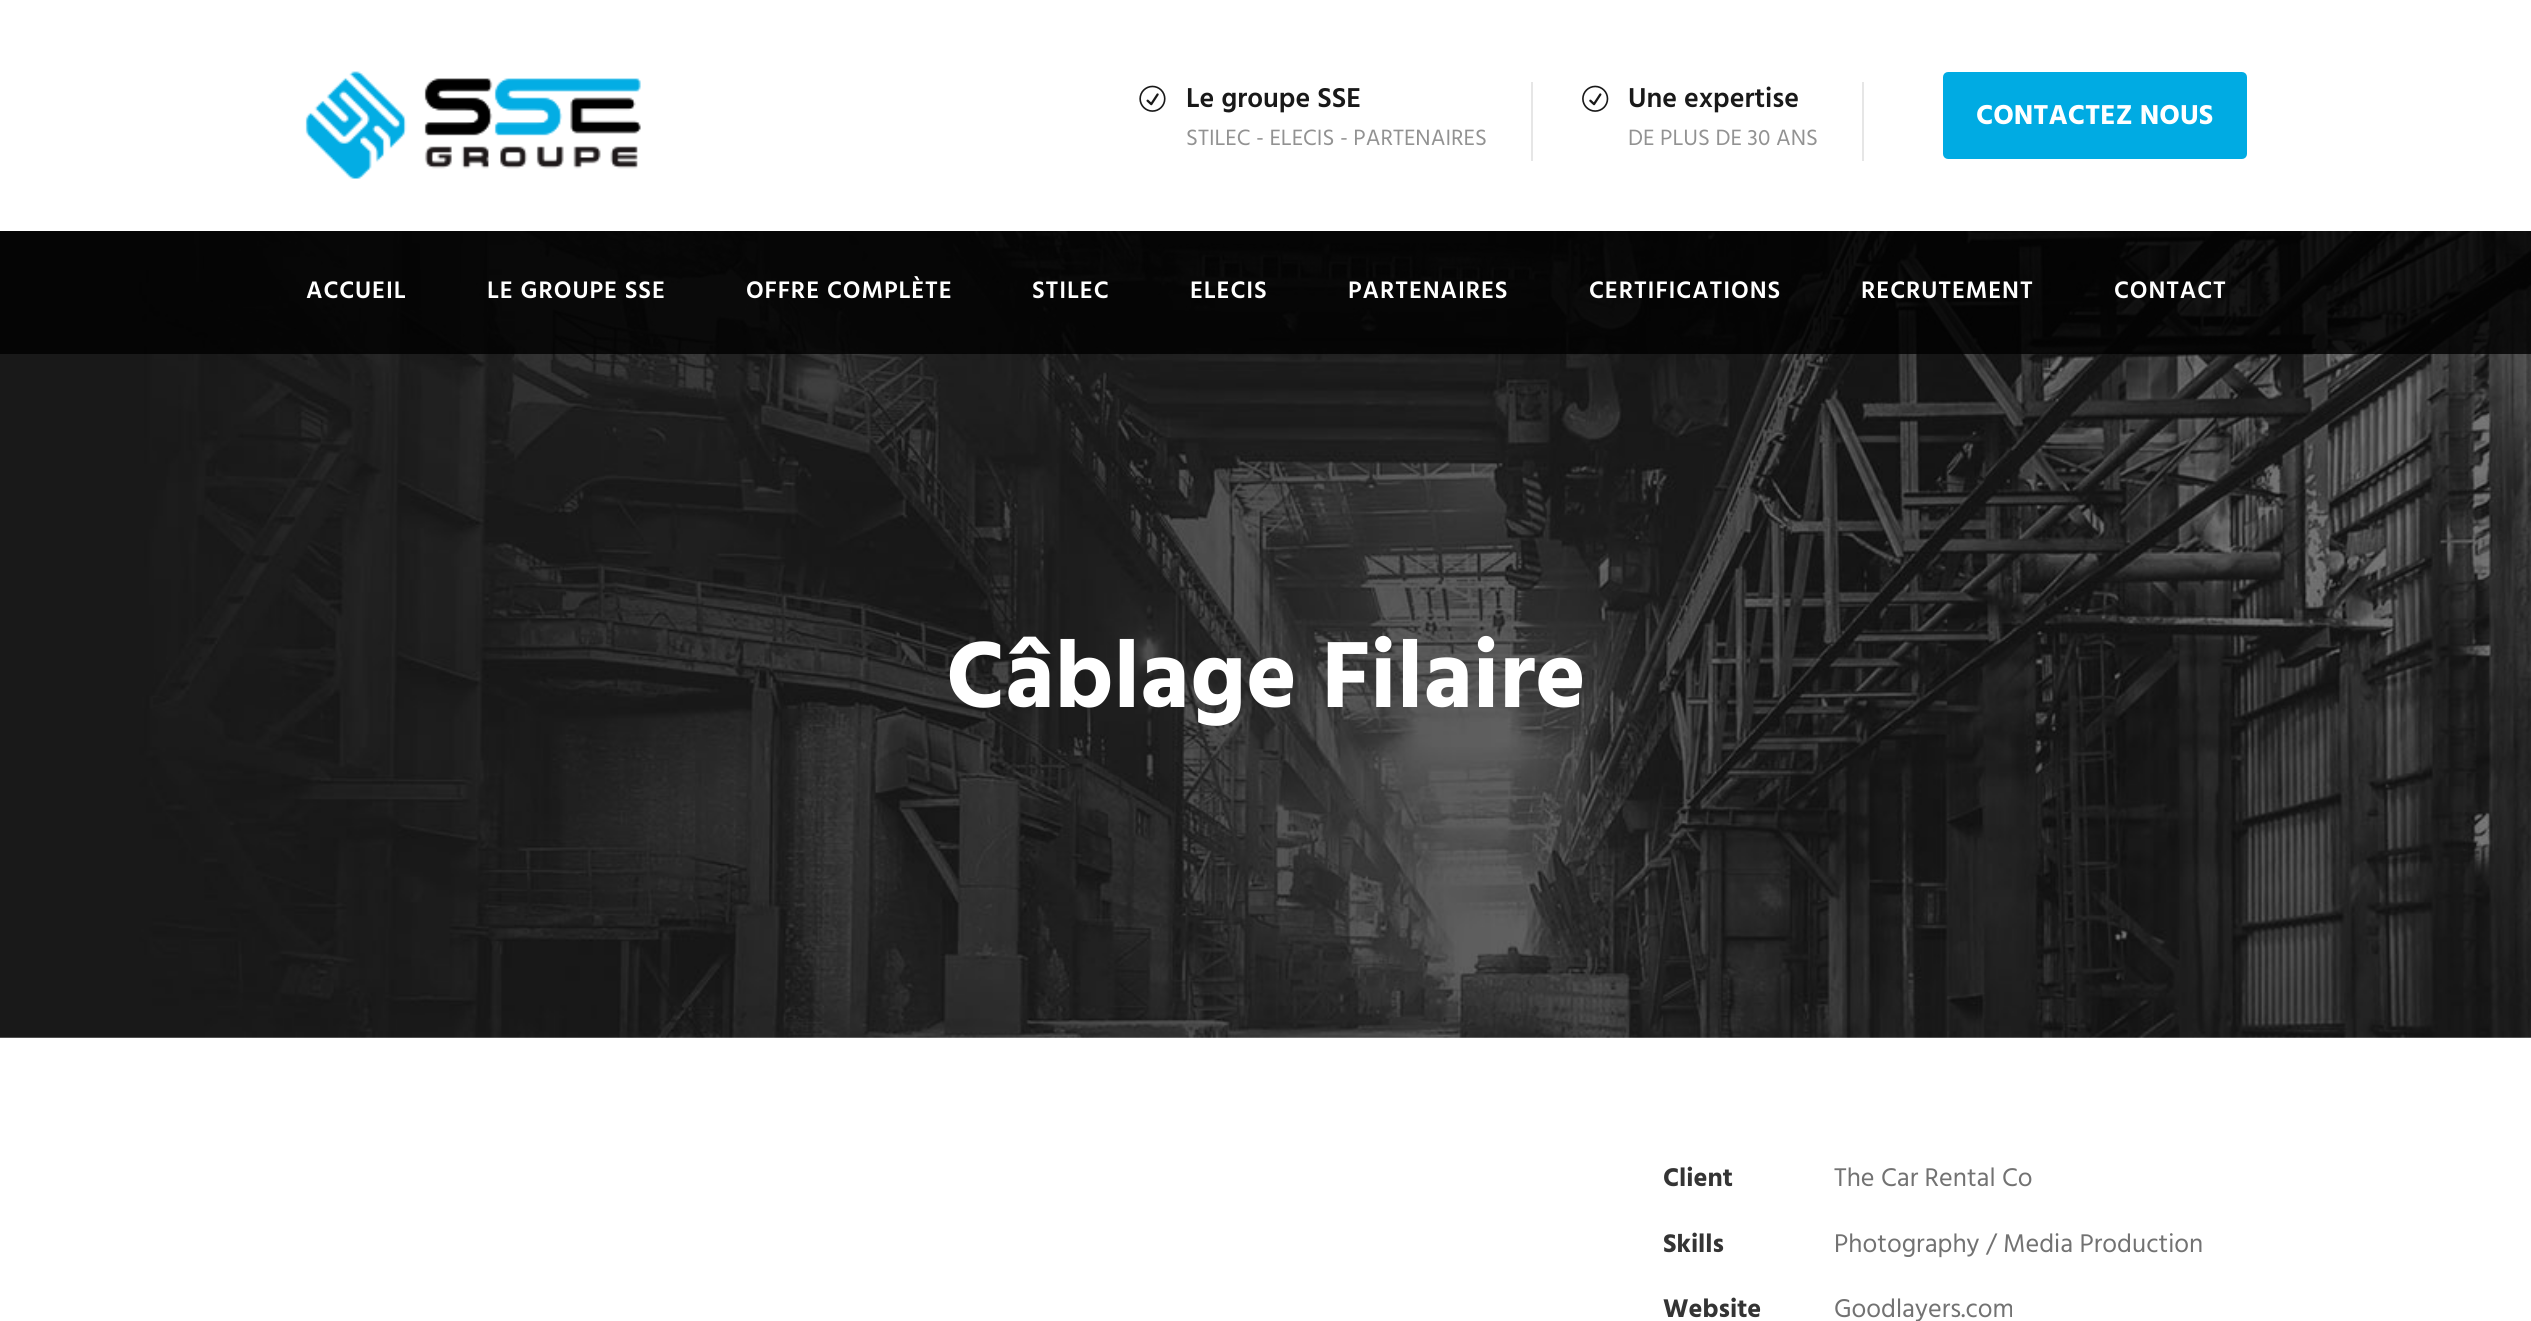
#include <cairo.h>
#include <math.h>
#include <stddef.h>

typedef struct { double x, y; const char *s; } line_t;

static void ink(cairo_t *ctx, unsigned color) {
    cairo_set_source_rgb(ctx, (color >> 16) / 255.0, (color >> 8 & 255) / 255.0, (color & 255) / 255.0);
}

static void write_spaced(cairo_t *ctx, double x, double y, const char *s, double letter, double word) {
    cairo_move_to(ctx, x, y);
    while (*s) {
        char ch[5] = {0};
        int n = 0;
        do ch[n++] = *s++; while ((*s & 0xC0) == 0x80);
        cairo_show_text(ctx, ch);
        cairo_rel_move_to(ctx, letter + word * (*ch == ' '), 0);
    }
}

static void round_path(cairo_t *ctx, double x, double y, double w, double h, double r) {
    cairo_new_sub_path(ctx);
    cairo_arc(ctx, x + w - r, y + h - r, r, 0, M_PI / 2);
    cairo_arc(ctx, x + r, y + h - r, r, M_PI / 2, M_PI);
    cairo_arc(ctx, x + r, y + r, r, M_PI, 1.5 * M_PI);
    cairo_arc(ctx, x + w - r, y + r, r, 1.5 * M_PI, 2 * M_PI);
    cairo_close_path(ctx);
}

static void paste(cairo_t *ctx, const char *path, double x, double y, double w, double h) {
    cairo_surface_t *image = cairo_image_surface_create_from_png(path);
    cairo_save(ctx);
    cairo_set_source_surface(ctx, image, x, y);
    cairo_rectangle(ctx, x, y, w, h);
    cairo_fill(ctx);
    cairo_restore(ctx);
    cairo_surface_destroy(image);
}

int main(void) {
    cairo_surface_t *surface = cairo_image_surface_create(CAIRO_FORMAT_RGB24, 2531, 1321);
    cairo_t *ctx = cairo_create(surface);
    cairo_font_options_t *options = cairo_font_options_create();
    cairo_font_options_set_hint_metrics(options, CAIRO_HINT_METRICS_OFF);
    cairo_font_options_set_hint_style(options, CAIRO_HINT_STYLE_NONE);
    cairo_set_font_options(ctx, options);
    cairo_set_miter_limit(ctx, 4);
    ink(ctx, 0xFFFFFF);
    cairo_paint(ctx);
    paste(ctx, "media/1.png", 305, 71, 336, 108);
    paste(ctx, "media/2.png", 1139, 85, 27, 27);
    cairo_select_font_face(ctx, "Hind SemiBold", CAIRO_FONT_SLANT_NORMAL, CAIRO_FONT_WEIGHT_NORMAL);
    cairo_set_font_size(ctx, 28);
    ink(ctx, 0x191919);
    cairo_move_to(ctx, 1186, 107);
    cairo_show_text(ctx, "Le groupe SSE");
    cairo_select_font_face(ctx, "Hind", CAIRO_FONT_SLANT_NORMAL, CAIRO_FONT_WEIGHT_NORMAL);
    cairo_set_font_size(ctx, 22.75);
    ink(ctx, 0x929292);
    cairo_move_to(ctx, 1186, 145);
    cairo_show_text(ctx, "STILEC - ELECIS - PARTENAIRES");
    ink(ctx, 0xE6E6E6);
    cairo_rectangle(ctx, 1862, 82, 2, 79);
    cairo_fill(ctx);
    cairo_rectangle(ctx, 1531, 82, 2, 79);
    cairo_fill(ctx);
    paste(ctx, "media/3.png", 1582, 85, 27, 27);
    cairo_select_font_face(ctx, "Hind SemiBold", CAIRO_FONT_SLANT_NORMAL, CAIRO_FONT_WEIGHT_NORMAL);
    cairo_set_font_size(ctx, 28);
    ink(ctx, 0x191919);
    cairo_move_to(ctx, 1628, 107);
    cairo_show_text(ctx, "Une expertise");
    cairo_select_font_face(ctx, "Hind", CAIRO_FONT_SLANT_NORMAL, CAIRO_FONT_WEIGHT_NORMAL);
    cairo_set_font_size(ctx, 22.75);
    ink(ctx, 0x929292);
    cairo_move_to(ctx, 1628, 145);
    cairo_show_text(ctx, "DE PLUS DE 30 ANS");
    ink(ctx, 0x00ABE3);
    round_path(ctx, 1945, 74, 300, 83, 3);
    cairo_fill_preserve(ctx);
    cairo_set_line_width(ctx, 4);
    cairo_stroke(ctx);
    cairo_select_font_face(ctx, "Hind", CAIRO_FONT_SLANT_NORMAL, CAIRO_FONT_WEIGHT_BOLD);
    cairo_set_font_size(ctx, 28);
    ink(ctx, 0xFFFFFF);
    cairo_move_to(ctx, 1976, 124);
    cairo_show_text(ctx, "CONTACTEZ NOUS");
    paste(ctx, "media/4.png", 0, 231, 2531, 807);
    cairo_set_source_rgba(ctx, 0, 0, 0, 0.82);
    cairo_rectangle(ctx, 0, 231, 2531, 123);
    cairo_fill(ctx);
    cairo_select_font_face(ctx, "Hind SemiBold", CAIRO_FONT_SLANT_NORMAL, CAIRO_FONT_WEIGHT_NORMAL);
    cairo_set_font_size(ctx, 24.5);
    ink(ctx, 0xFFFFFF);
    {
        static const line_t items[] = {
            {306, 298, "ACCUEIL"},
            {487, 298, "LE GROUPE SSE"},
            {746, 298, "OFFRE COMPLÈTE"},
            {1032, 298, "STILEC"},
            {1190, 298, "ELECIS"},
            {1348, 298, "PARTENAIRES"},
            {1589, 298, "CERTIFICATIONS"},
            {1861, 298, "RECRUTEMENT"},
            {2114, 298, "CONTACT"},
        };
        for (size_t i = 0; i < sizeof items / sizeof *items; i++) {
            write_spaced(ctx, items[i].x, items[i].y, items[i].s, 0.9, 0);
        }
    }
    cairo_select_font_face(ctx, "Hind", CAIRO_FONT_SLANT_NORMAL, CAIRO_FONT_WEIGHT_BOLD);
    cairo_set_font_size(ctx, 96.25);
    cairo_move_to(ctx, 946, 707);
    cairo_show_text(ctx, "Câblage Filaire");
    cairo_set_font_size(ctx, 26.25);
    ink(ctx, 0x343434);
    cairo_move_to(ctx, 1663, 1186);
    cairo_show_text(ctx, "Client");
    cairo_select_font_face(ctx, "Hind", CAIRO_FONT_SLANT_NORMAL, CAIRO_FONT_WEIGHT_NORMAL);
    ink(ctx, 0x727272);
    cairo_move_to(ctx, 1834, 1186);
    cairo_show_text(ctx, "The Car Rental Co");
    cairo_select_font_face(ctx, "Hind", CAIRO_FONT_SLANT_NORMAL, CAIRO_FONT_WEIGHT_BOLD);
    ink(ctx, 0x343434);
    cairo_move_to(ctx, 1663, 1252);
    cairo_show_text(ctx, "Skills");
    cairo_select_font_face(ctx, "Hind", CAIRO_FONT_SLANT_NORMAL, CAIRO_FONT_WEIGHT_NORMAL);
    ink(ctx, 0x727272);
    cairo_move_to(ctx, 1834, 1252);
    cairo_show_text(ctx, "Photography / Media Production");
    cairo_select_font_face(ctx, "Hind", CAIRO_FONT_SLANT_NORMAL, CAIRO_FONT_WEIGHT_BOLD);
    ink(ctx, 0x343434);
    cairo_move_to(ctx, 1663, 1317);
    cairo_show_text(ctx, "Website");
    cairo_select_font_face(ctx, "Hind", CAIRO_FONT_SLANT_NORMAL, CAIRO_FONT_WEIGHT_NORMAL);
    ink(ctx, 0x727272);
    cairo_move_to(ctx, 1834, 1317);
    cairo_show_text(ctx, "Goodlayers.com");
    cairo_surface_write_to_png(surface, "image.png");
    cairo_font_options_destroy(options);
    cairo_destroy(ctx);
    cairo_surface_destroy(surface);
    return 0;
}
